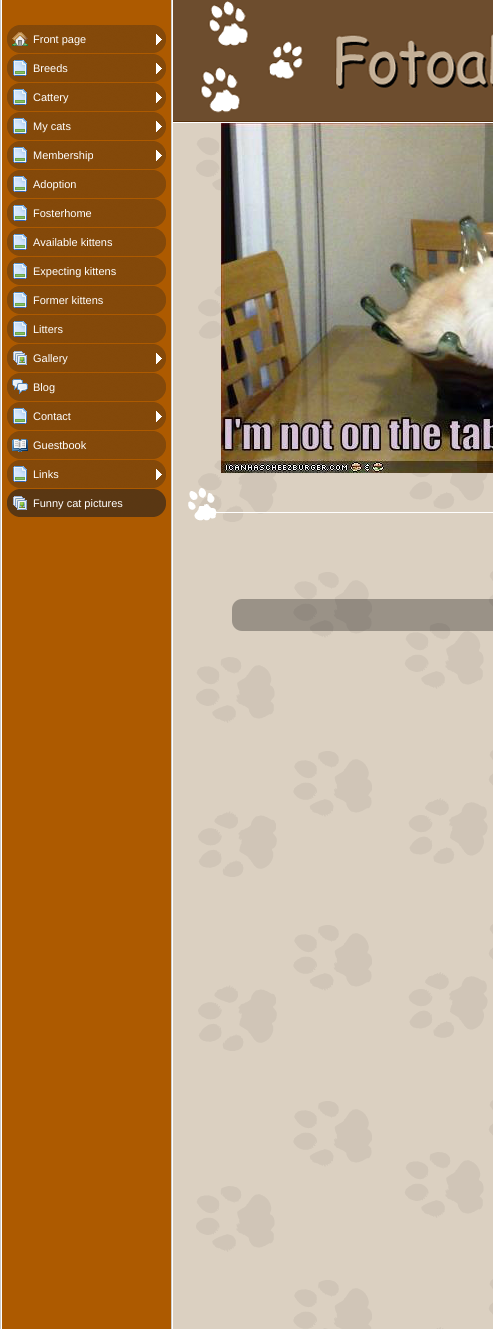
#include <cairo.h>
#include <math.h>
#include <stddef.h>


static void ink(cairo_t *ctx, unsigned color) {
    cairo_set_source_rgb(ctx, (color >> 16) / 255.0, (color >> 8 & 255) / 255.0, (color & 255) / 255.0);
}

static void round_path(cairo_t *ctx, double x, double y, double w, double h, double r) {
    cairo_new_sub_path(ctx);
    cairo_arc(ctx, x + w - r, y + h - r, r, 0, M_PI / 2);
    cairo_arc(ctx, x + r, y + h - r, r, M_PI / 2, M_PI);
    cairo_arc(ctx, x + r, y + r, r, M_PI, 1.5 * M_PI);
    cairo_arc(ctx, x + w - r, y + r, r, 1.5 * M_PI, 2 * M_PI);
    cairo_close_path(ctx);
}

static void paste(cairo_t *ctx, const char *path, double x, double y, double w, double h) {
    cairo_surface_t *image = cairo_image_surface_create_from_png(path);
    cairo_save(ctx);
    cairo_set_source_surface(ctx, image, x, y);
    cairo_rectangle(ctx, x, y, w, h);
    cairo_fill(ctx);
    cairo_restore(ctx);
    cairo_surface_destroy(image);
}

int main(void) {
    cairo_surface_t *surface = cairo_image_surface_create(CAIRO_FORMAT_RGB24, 493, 1329);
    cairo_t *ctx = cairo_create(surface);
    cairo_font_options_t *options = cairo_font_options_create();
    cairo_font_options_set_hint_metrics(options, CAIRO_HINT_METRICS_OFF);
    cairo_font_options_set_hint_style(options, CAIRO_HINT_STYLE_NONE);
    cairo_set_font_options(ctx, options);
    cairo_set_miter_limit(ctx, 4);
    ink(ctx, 0xFFFFFF);
    cairo_paint(ctx);
    ink(ctx, 0xCCCCCC);
    cairo_rectangle(ctx, 0, 0, 1, 1329);
    cairo_fill(ctx);
    ink(ctx, 0xAD5A00);
    cairo_rectangle(ctx, 2, 0, 169, 1329);
    cairo_fill(ctx);
    paste(ctx, "media/1.png", 7, 25, 159, 28);
    paste(ctx, "media/2.png", 12, 32, 16, 14);
    paste(ctx, "media/3.png", 156, 34, 6, 11);
    cairo_select_font_face(ctx, "Liberation Sans", CAIRO_FONT_SLANT_NORMAL, CAIRO_FONT_WEIGHT_NORMAL);
    cairo_set_font_size(ctx, 11);
    ink(ctx, 0xFFFFFF);
    cairo_move_to(ctx, 33, 43);
    cairo_show_text(ctx, "Front page");
    paste(ctx, "media/1.png", 7, 54, 159, 28);
    paste(ctx, "media/4.png", 13, 60, 14, 16);
    paste(ctx, "media/3.png", 156, 63, 6, 11);
    cairo_move_to(ctx, 33, 72);
    cairo_show_text(ctx, "Breeds");
    paste(ctx, "media/1.png", 7, 83, 159, 28);
    paste(ctx, "media/4.png", 13, 89, 14, 16);
    paste(ctx, "media/3.png", 156, 92, 6, 11);
    cairo_move_to(ctx, 33, 101);
    cairo_show_text(ctx, "Cattery");
    paste(ctx, "media/1.png", 7, 112, 159, 28);
    paste(ctx, "media/4.png", 13, 118, 14, 16);
    paste(ctx, "media/3.png", 156, 121, 6, 11);
    cairo_move_to(ctx, 33, 130);
    cairo_show_text(ctx, "My cats");
    paste(ctx, "media/1.png", 7, 141, 159, 28);
    paste(ctx, "media/4.png", 13, 147, 14, 16);
    paste(ctx, "media/3.png", 156, 150, 6, 11);
    cairo_move_to(ctx, 33, 159);
    cairo_show_text(ctx, "Membership");
    paste(ctx, "media/1.png", 7, 170, 159, 28);
    paste(ctx, "media/4.png", 13, 176, 14, 16);
    cairo_move_to(ctx, 33, 188);
    cairo_show_text(ctx, "Adoption");
    paste(ctx, "media/1.png", 7, 199, 159, 28);
    paste(ctx, "media/4.png", 13, 205, 14, 16);
    cairo_move_to(ctx, 33, 217);
    cairo_show_text(ctx, "Fosterhome");
    paste(ctx, "media/1.png", 7, 228, 159, 28);
    paste(ctx, "media/4.png", 13, 234, 14, 16);
    cairo_move_to(ctx, 33, 246);
    cairo_show_text(ctx, "Available kittens");
    paste(ctx, "media/1.png", 7, 257, 159, 28);
    paste(ctx, "media/4.png", 13, 263, 14, 16);
    cairo_move_to(ctx, 33, 275);
    cairo_show_text(ctx, "Expecting kittens");
    paste(ctx, "media/1.png", 7, 286, 159, 28);
    paste(ctx, "media/4.png", 13, 292, 14, 16);
    cairo_move_to(ctx, 33, 304);
    cairo_show_text(ctx, "Former kittens");
    paste(ctx, "media/1.png", 7, 315, 159, 28);
    paste(ctx, "media/4.png", 13, 321, 14, 16);
    cairo_move_to(ctx, 33, 333);
    cairo_show_text(ctx, "Litters");
    paste(ctx, "media/1.png", 7, 344, 159, 28);
    paste(ctx, "media/5.png", 13, 351, 14, 14);
    paste(ctx, "media/3.png", 156, 353, 6, 11);
    cairo_move_to(ctx, 33, 362);
    cairo_show_text(ctx, "Gallery");
    paste(ctx, "media/1.png", 7, 373, 159, 28);
    paste(ctx, "media/6.png", 12, 379, 16, 15);
    cairo_move_to(ctx, 33, 391);
    cairo_show_text(ctx, "Blog");
    paste(ctx, "media/1.png", 7, 402, 159, 28);
    paste(ctx, "media/4.png", 13, 408, 14, 16);
    paste(ctx, "media/3.png", 156, 411, 6, 11);
    cairo_move_to(ctx, 33, 420);
    cairo_show_text(ctx, "Contact");
    paste(ctx, "media/1.png", 7, 431, 159, 28);
    paste(ctx, "media/7.png", 12, 439, 16, 13);
    cairo_move_to(ctx, 33, 449);
    cairo_show_text(ctx, "Guestbook");
    paste(ctx, "media/1.png", 7, 460, 159, 28);
    paste(ctx, "media/4.png", 13, 466, 14, 16);
    paste(ctx, "media/3.png", 156, 469, 6, 11);
    cairo_move_to(ctx, 33, 478);
    cairo_show_text(ctx, "Links");
    paste(ctx, "media/8.png", 7, 489, 159, 28);
    paste(ctx, "media/9.png", 13, 496, 14, 14);
    cairo_move_to(ctx, 33, 507);
    cairo_show_text(ctx, "Funny cat pictures");
    ink(ctx, 0xCCCCCC);
    cairo_rectangle(ctx, 171, 0, 1, 1329);
    cairo_fill(ctx);
    ink(ctx, 0xDBD0C1);
    cairo_rectangle(ctx, 173, 123, 320, 1206);
    cairo_fill(ctx);
    paste(ctx, "media/10.png", 196, 132, 297, 1197);
    paste(ctx, "media/11.png", 173, 0, 320, 122);
    paste(ctx, "media/12.png", 221, 123, 272, 350);
    paste(ctx, "media/13.png", 188, 488, 29, 33);
    ink(ctx, 0xFFFFFF);
    cairo_rectangle(ctx, 217, 512, 276, 1);
    cairo_fill(ctx);
    cairo_set_source_rgba(ctx, 0, 0, 0, 0.3);
    round_path(ctx, 232, 599, 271, 32, 10);
    cairo_fill(ctx);
    cairo_surface_write_to_png(surface, "image.png");
    cairo_font_options_destroy(options);
    cairo_destroy(ctx);
    cairo_surface_destroy(surface);
    return 0;
}
